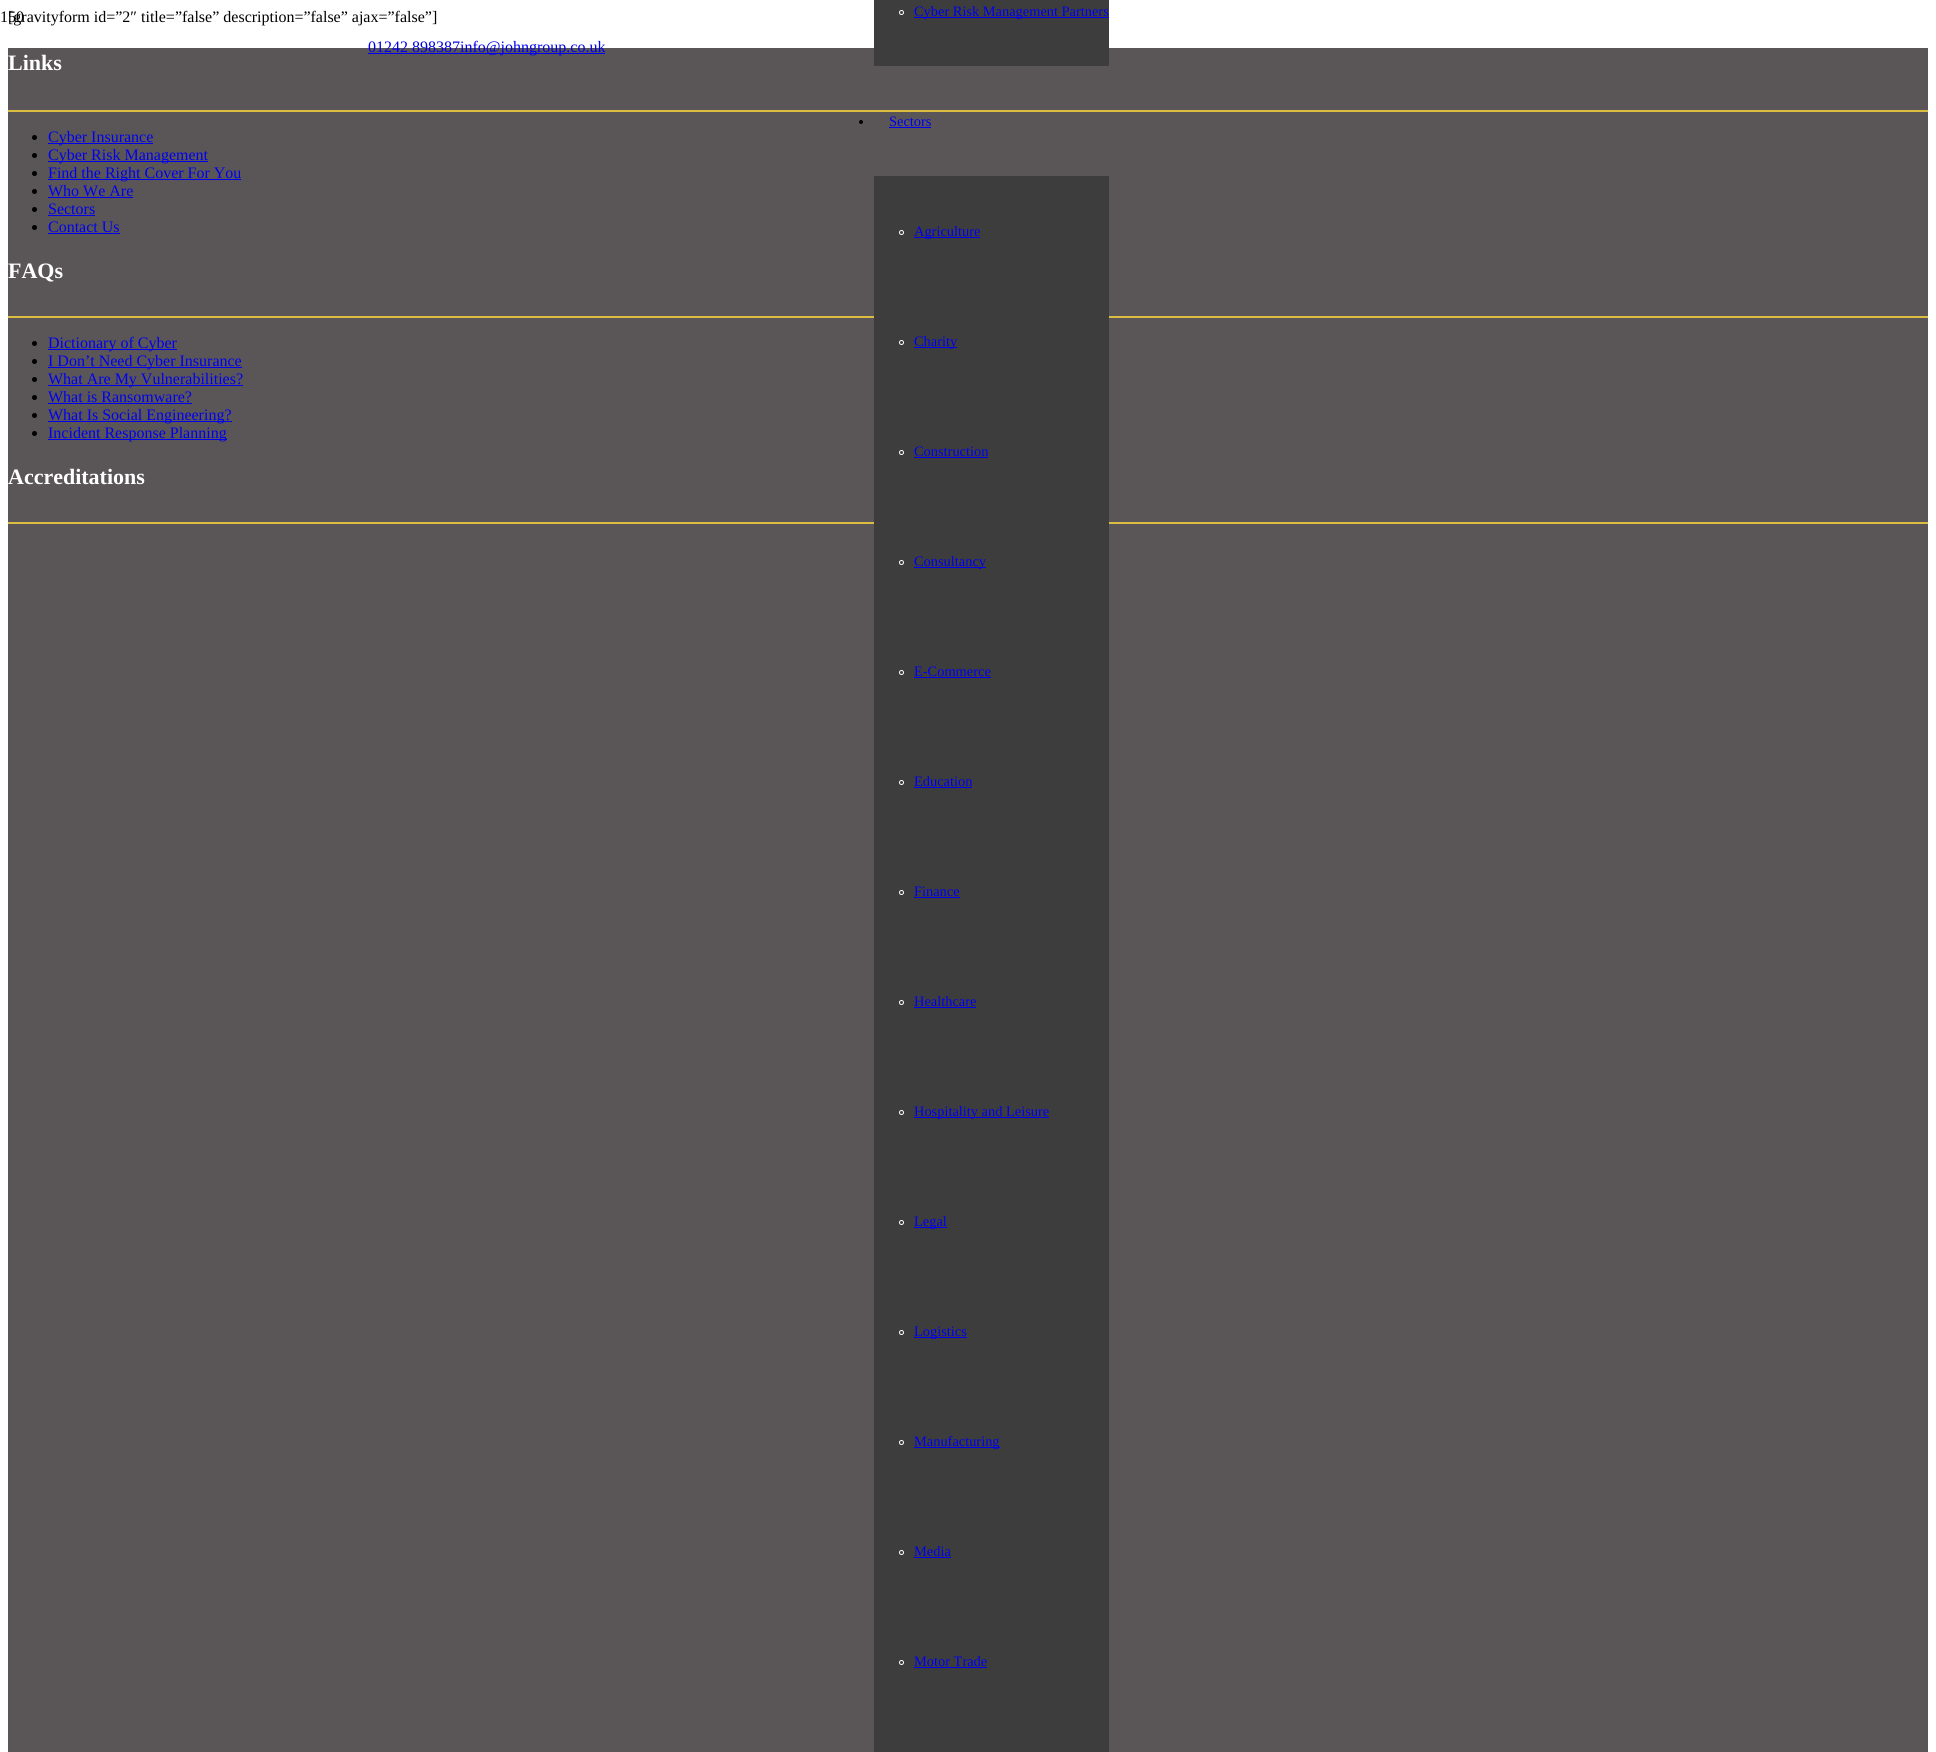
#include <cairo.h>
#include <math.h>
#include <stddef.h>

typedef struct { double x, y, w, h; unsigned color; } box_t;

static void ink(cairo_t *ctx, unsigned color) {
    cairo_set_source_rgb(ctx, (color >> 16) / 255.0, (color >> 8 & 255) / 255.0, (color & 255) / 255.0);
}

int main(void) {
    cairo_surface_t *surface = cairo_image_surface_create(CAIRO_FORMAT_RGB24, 1936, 1752);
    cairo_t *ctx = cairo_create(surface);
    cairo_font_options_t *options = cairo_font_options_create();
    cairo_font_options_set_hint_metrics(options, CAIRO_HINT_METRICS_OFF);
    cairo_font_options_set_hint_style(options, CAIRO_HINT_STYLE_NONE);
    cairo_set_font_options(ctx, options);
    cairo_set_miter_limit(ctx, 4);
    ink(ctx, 0xFFFFFF);
    cairo_paint(ctx);
    cairo_select_font_face(ctx, "Liberation Serif", CAIRO_FONT_SLANT_NORMAL, CAIRO_FONT_WEIGHT_NORMAL);
    cairo_set_font_size(ctx, 16);
    ink(ctx, 0x000000);
    cairo_move_to(ctx, 8, 22);
    cairo_show_text(ctx, "[gravityform id=”2″ title=”false” description=”false” ajax=”false”]");
    cairo_move_to(ctx, 0, 22);
    cairo_show_text(ctx, "150");
    ink(ctx, 0x5A5657);
    cairo_rectangle(ctx, 8, 48, 1920, 1704);
    cairo_fill(ctx);
    ink(ctx, 0x3D3D3D);
    cairo_rectangle(ctx, 874, 0, 235, 66);
    cairo_fill(ctx);
    cairo_arc(ctx, 901.5, 12.5, 2, 0, 2 * M_PI);
    ink(ctx, 0xFFFFFF);
    cairo_set_line_width(ctx, 1);
    cairo_stroke(ctx);
    ink(ctx, 0x0000EE);
    cairo_rectangle(ctx, 914, 17, 195, 1);
    cairo_fill(ctx);
    cairo_set_font_size(ctx, 14.4);
    cairo_move_to(ctx, 914, 16);
    cairo_show_text(ctx, "Cyber Risk Management Partners");
    ink(ctx, 0x000000);
    cairo_new_path(ctx);
    cairo_arc(ctx, 861, 122, 2, 0, 2 * M_PI);
    cairo_fill(ctx);
    ink(ctx, 0x0000EE);
    cairo_move_to(ctx, 889, 126);
    cairo_show_text(ctx, "Sectors");
    {
        static const box_t items[] = {
            {889, 127, 42, 1, 0x0000EE},
            {8, 316, 1920, 2, 0xDDBC42},
            {8, 522, 1920, 2, 0xDDBC42},
            {874, 176, 235, 1576, 0x3D3D3D},
        };
        for (size_t i = 0; i < sizeof items / sizeof *items; i++) {
            ink(ctx, items[i].color);
            cairo_rectangle(ctx, items[i].x, items[i].y, items[i].w, items[i].h);
            cairo_fill(ctx);
        }
    }
    cairo_new_path(ctx);
    cairo_arc(ctx, 901.5, 232.5, 2, 0, 2 * M_PI);
    ink(ctx, 0xFFFFFF);
    cairo_stroke(ctx);
    ink(ctx, 0x0000EE);
    cairo_rectangle(ctx, 914, 237, 66, 1);
    cairo_fill(ctx);
    cairo_move_to(ctx, 914, 236);
    cairo_show_text(ctx, "Agriculture");
    cairo_new_path(ctx);
    cairo_arc(ctx, 901.5, 342.5, 2, 0, 2 * M_PI);
    ink(ctx, 0xFFFFFF);
    cairo_stroke(ctx);
    ink(ctx, 0x0000EE);
    cairo_rectangle(ctx, 914, 347, 43, 1);
    cairo_fill(ctx);
    cairo_move_to(ctx, 914, 346);
    cairo_show_text(ctx, "Charity");
    cairo_new_path(ctx);
    cairo_arc(ctx, 901.5, 452.5, 2, 0, 2 * M_PI);
    ink(ctx, 0xFFFFFF);
    cairo_stroke(ctx);
    ink(ctx, 0x0000EE);
    cairo_move_to(ctx, 914, 456);
    cairo_show_text(ctx, "Construction");
    cairo_rectangle(ctx, 914, 457, 74, 1);
    cairo_fill(ctx);
    cairo_arc(ctx, 901.5, 562.5, 2, 0, 2 * M_PI);
    ink(ctx, 0xFFFFFF);
    cairo_stroke(ctx);
    ink(ctx, 0x0000EE);
    cairo_rectangle(ctx, 914, 567, 72, 1);
    cairo_fill(ctx);
    cairo_move_to(ctx, 914, 566);
    cairo_show_text(ctx, "Consultancy");
    cairo_new_path(ctx);
    cairo_arc(ctx, 901.5, 672.5, 2, 0, 2 * M_PI);
    ink(ctx, 0xFFFFFF);
    cairo_stroke(ctx);
    ink(ctx, 0x0000EE);
    cairo_move_to(ctx, 914, 676);
    cairo_show_text(ctx, "E-Commerce");
    cairo_rectangle(ctx, 914, 677, 77, 1);
    cairo_fill(ctx);
    cairo_arc(ctx, 901.5, 782.5, 2, 0, 2 * M_PI);
    ink(ctx, 0xFFFFFF);
    cairo_stroke(ctx);
    ink(ctx, 0x0000EE);
    cairo_move_to(ctx, 914, 786);
    cairo_show_text(ctx, "Education");
    cairo_rectangle(ctx, 914, 787, 58, 1);
    cairo_fill(ctx);
    cairo_arc(ctx, 901.5, 892.5, 2, 0, 2 * M_PI);
    ink(ctx, 0xFFFFFF);
    cairo_stroke(ctx);
    ink(ctx, 0x0000EE);
    cairo_move_to(ctx, 914, 896);
    cairo_show_text(ctx, "Finance");
    cairo_rectangle(ctx, 914, 897, 46, 1);
    cairo_fill(ctx);
    cairo_arc(ctx, 901.5, 1002.5, 2, 0, 2 * M_PI);
    ink(ctx, 0xFFFFFF);
    cairo_stroke(ctx);
    ink(ctx, 0x0000EE);
    cairo_move_to(ctx, 914, 1006);
    cairo_show_text(ctx, "Healthcare");
    cairo_rectangle(ctx, 914, 1007, 62, 1);
    cairo_fill(ctx);
    cairo_arc(ctx, 901.5, 1112.5, 2, 0, 2 * M_PI);
    ink(ctx, 0xFFFFFF);
    cairo_stroke(ctx);
    ink(ctx, 0x0000EE);
    cairo_rectangle(ctx, 914, 1117, 135, 1);
    cairo_fill(ctx);
    cairo_move_to(ctx, 914, 1116);
    cairo_show_text(ctx, "Hospitality and Leisure");
    cairo_new_path(ctx);
    cairo_arc(ctx, 901.5, 1222.5, 2, 0, 2 * M_PI);
    ink(ctx, 0xFFFFFF);
    cairo_stroke(ctx);
    ink(ctx, 0x0000EE);
    cairo_rectangle(ctx, 914, 1227, 33, 1);
    cairo_fill(ctx);
    cairo_move_to(ctx, 914, 1226);
    cairo_show_text(ctx, "Legal");
    cairo_new_path(ctx);
    cairo_arc(ctx, 901.5, 1332.5, 2, 0, 2 * M_PI);
    ink(ctx, 0xFFFFFF);
    cairo_stroke(ctx);
    ink(ctx, 0x0000EE);
    cairo_rectangle(ctx, 914, 1337, 53, 1);
    cairo_fill(ctx);
    cairo_move_to(ctx, 914, 1336);
    cairo_show_text(ctx, "Logistics");
    cairo_new_path(ctx);
    cairo_arc(ctx, 901.5, 1442.5, 2, 0, 2 * M_PI);
    ink(ctx, 0xFFFFFF);
    cairo_stroke(ctx);
    ink(ctx, 0x0000EE);
    cairo_rectangle(ctx, 914, 1447, 86, 1);
    cairo_fill(ctx);
    cairo_move_to(ctx, 914, 1446);
    cairo_show_text(ctx, "Manufacturing");
    cairo_new_path(ctx);
    cairo_arc(ctx, 901.5, 1552.5, 2, 0, 2 * M_PI);
    ink(ctx, 0xFFFFFF);
    cairo_stroke(ctx);
    ink(ctx, 0x0000EE);
    cairo_move_to(ctx, 914, 1556);
    cairo_show_text(ctx, "Media");
    cairo_rectangle(ctx, 914, 1557, 37, 1);
    cairo_fill(ctx);
    cairo_arc(ctx, 901.5, 1662.5, 2, 0, 2 * M_PI);
    ink(ctx, 0xFFFFFF);
    cairo_stroke(ctx);
    ink(ctx, 0x0000EE);
    cairo_move_to(ctx, 914, 1666);
    cairo_show_text(ctx, "Motor Trade");
    cairo_rectangle(ctx, 914, 1667, 73, 1);
    cairo_fill(ctx);
    cairo_rectangle(ctx, 368, 53, 237, 1);
    cairo_fill(ctx);
    cairo_set_font_size(ctx, 16);
    cairo_move_to(ctx, 368, 52);
    cairo_show_text(ctx, "01242 898387info@johngroup.co.uk");
    ink(ctx, 0xDDBC42);
    cairo_rectangle(ctx, 8, 110, 1920, 2);
    cairo_fill(ctx);
    cairo_select_font_face(ctx, "Liberation Serif", CAIRO_FONT_SLANT_NORMAL, CAIRO_FONT_WEIGHT_BOLD);
    cairo_set_font_size(ctx, 22);
    ink(ctx, 0xFFFFFF);
    cairo_move_to(ctx, 8, 70);
    cairo_show_text(ctx, "Links");
    ink(ctx, 0x000000);
    cairo_new_path(ctx);
    cairo_arc(ctx, 34.5, 137.5, 2.5, 0, 2 * M_PI);
    cairo_fill(ctx);
    ink(ctx, 0x0000EE);
    cairo_rectangle(ctx, 48, 143, 105, 1);
    cairo_fill(ctx);
    cairo_select_font_face(ctx, "Liberation Serif", CAIRO_FONT_SLANT_NORMAL, CAIRO_FONT_WEIGHT_NORMAL);
    cairo_set_font_size(ctx, 16);
    cairo_move_to(ctx, 48, 142);
    cairo_show_text(ctx, "Cyber Insurance");
    ink(ctx, 0x000000);
    cairo_new_path(ctx);
    cairo_arc(ctx, 34.5, 155.5, 2.5, 0, 2 * M_PI);
    cairo_fill(ctx);
    ink(ctx, 0x0000EE);
    cairo_rectangle(ctx, 48, 161, 160, 1);
    cairo_fill(ctx);
    cairo_move_to(ctx, 48, 160);
    cairo_show_text(ctx, "Cyber Risk Management");
    ink(ctx, 0x000000);
    cairo_new_path(ctx);
    cairo_arc(ctx, 34.5, 173.5, 2.5, 0, 2 * M_PI);
    cairo_fill(ctx);
    ink(ctx, 0x0000EE);
    cairo_rectangle(ctx, 48, 179, 193, 1);
    cairo_fill(ctx);
    cairo_move_to(ctx, 48, 178);
    cairo_show_text(ctx, "Find the Right Cover For You");
    ink(ctx, 0x000000);
    cairo_new_path(ctx);
    cairo_arc(ctx, 34.5, 191.5, 2.5, 0, 2 * M_PI);
    cairo_fill(ctx);
    ink(ctx, 0x0000EE);
    cairo_move_to(ctx, 48, 196);
    cairo_show_text(ctx, "Who We Are");
    cairo_rectangle(ctx, 48, 197, 85, 1);
    cairo_fill(ctx);
    ink(ctx, 0x000000);
    cairo_arc(ctx, 34.5, 209.5, 2.5, 0, 2 * M_PI);
    cairo_fill(ctx);
    ink(ctx, 0x0000EE);
    cairo_move_to(ctx, 48, 214);
    cairo_show_text(ctx, "Sectors");
    cairo_rectangle(ctx, 48, 215, 47, 1);
    cairo_fill(ctx);
    ink(ctx, 0x000000);
    cairo_arc(ctx, 34.5, 227.5, 2.5, 0, 2 * M_PI);
    cairo_fill(ctx);
    ink(ctx, 0x0000EE);
    cairo_move_to(ctx, 48, 232);
    cairo_show_text(ctx, "Contact Us");
    cairo_rectangle(ctx, 48, 233, 72, 1);
    cairo_fill(ctx);
    cairo_select_font_face(ctx, "Liberation Serif", CAIRO_FONT_SLANT_NORMAL, CAIRO_FONT_WEIGHT_BOLD);
    cairo_set_font_size(ctx, 22);
    ink(ctx, 0xFFFFFF);
    cairo_move_to(ctx, 8, 278);
    cairo_show_text(ctx, "FAQs");
    ink(ctx, 0x000000);
    cairo_new_path(ctx);
    cairo_arc(ctx, 34.5, 343.5, 2.5, 0, 2 * M_PI);
    cairo_fill(ctx);
    ink(ctx, 0x0000EE);
    cairo_rectangle(ctx, 48, 349, 129, 1);
    cairo_fill(ctx);
    cairo_select_font_face(ctx, "Liberation Serif", CAIRO_FONT_SLANT_NORMAL, CAIRO_FONT_WEIGHT_NORMAL);
    cairo_set_font_size(ctx, 16);
    cairo_move_to(ctx, 48, 348);
    cairo_show_text(ctx, "Dictionary of Cyber");
    ink(ctx, 0x000000);
    cairo_new_path(ctx);
    cairo_arc(ctx, 34.5, 361.5, 2.5, 0, 2 * M_PI);
    cairo_fill(ctx);
    ink(ctx, 0x0000EE);
    cairo_rectangle(ctx, 48, 367, 194, 1);
    cairo_fill(ctx);
    cairo_move_to(ctx, 48, 366);
    cairo_show_text(ctx, "I Don’t Need Cyber Insurance");
    ink(ctx, 0x000000);
    cairo_new_path(ctx);
    cairo_arc(ctx, 34.5, 379.5, 2.5, 0, 2 * M_PI);
    cairo_fill(ctx);
    ink(ctx, 0x0000EE);
    cairo_rectangle(ctx, 48, 385, 195, 1);
    cairo_fill(ctx);
    cairo_move_to(ctx, 48, 384);
    cairo_show_text(ctx, "What Are My Vulnerabilities?");
    ink(ctx, 0x000000);
    cairo_new_path(ctx);
    cairo_arc(ctx, 34.5, 397.5, 2.5, 0, 2 * M_PI);
    cairo_fill(ctx);
    ink(ctx, 0x0000EE);
    cairo_move_to(ctx, 48, 402);
    cairo_show_text(ctx, "What is Ransomware?");
    cairo_rectangle(ctx, 48, 403, 144, 1);
    cairo_fill(ctx);
    ink(ctx, 0x000000);
    cairo_arc(ctx, 34.5, 415.5, 2.5, 0, 2 * M_PI);
    cairo_fill(ctx);
    ink(ctx, 0x0000EE);
    cairo_rectangle(ctx, 48, 421, 184, 1);
    cairo_fill(ctx);
    cairo_move_to(ctx, 48, 420);
    cairo_show_text(ctx, "What Is Social Engineering?");
    ink(ctx, 0x000000);
    cairo_new_path(ctx);
    cairo_arc(ctx, 34.5, 433.5, 2.5, 0, 2 * M_PI);
    cairo_fill(ctx);
    ink(ctx, 0x0000EE);
    cairo_rectangle(ctx, 48, 439, 179, 1);
    cairo_fill(ctx);
    cairo_move_to(ctx, 48, 438);
    cairo_show_text(ctx, "Incident Response Planning");
    cairo_select_font_face(ctx, "Liberation Serif", CAIRO_FONT_SLANT_NORMAL, CAIRO_FONT_WEIGHT_BOLD);
    cairo_set_font_size(ctx, 22);
    ink(ctx, 0xFFFFFF);
    cairo_move_to(ctx, 8, 484);
    cairo_show_text(ctx, "Accreditations");
    cairo_surface_write_to_png(surface, "image.png");
    cairo_font_options_destroy(options);
    cairo_destroy(ctx);
    cairo_surface_destroy(surface);
    return 0;
}
